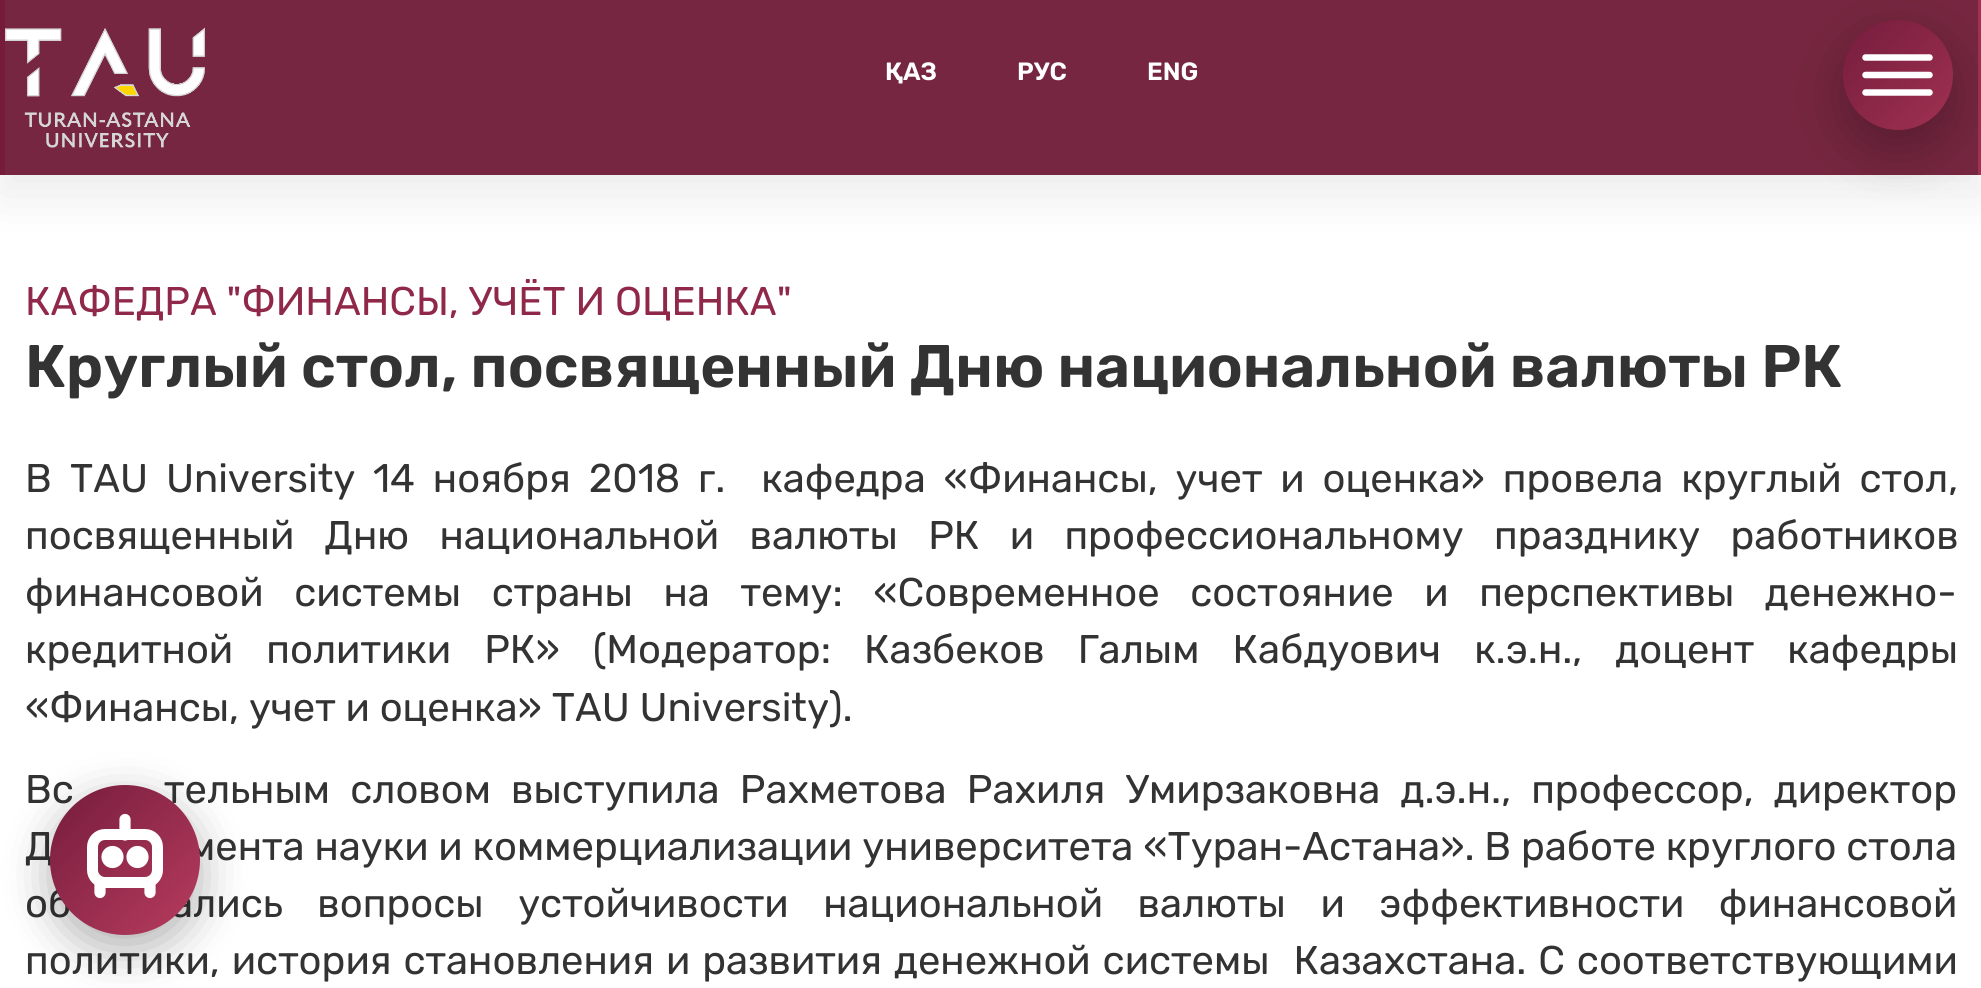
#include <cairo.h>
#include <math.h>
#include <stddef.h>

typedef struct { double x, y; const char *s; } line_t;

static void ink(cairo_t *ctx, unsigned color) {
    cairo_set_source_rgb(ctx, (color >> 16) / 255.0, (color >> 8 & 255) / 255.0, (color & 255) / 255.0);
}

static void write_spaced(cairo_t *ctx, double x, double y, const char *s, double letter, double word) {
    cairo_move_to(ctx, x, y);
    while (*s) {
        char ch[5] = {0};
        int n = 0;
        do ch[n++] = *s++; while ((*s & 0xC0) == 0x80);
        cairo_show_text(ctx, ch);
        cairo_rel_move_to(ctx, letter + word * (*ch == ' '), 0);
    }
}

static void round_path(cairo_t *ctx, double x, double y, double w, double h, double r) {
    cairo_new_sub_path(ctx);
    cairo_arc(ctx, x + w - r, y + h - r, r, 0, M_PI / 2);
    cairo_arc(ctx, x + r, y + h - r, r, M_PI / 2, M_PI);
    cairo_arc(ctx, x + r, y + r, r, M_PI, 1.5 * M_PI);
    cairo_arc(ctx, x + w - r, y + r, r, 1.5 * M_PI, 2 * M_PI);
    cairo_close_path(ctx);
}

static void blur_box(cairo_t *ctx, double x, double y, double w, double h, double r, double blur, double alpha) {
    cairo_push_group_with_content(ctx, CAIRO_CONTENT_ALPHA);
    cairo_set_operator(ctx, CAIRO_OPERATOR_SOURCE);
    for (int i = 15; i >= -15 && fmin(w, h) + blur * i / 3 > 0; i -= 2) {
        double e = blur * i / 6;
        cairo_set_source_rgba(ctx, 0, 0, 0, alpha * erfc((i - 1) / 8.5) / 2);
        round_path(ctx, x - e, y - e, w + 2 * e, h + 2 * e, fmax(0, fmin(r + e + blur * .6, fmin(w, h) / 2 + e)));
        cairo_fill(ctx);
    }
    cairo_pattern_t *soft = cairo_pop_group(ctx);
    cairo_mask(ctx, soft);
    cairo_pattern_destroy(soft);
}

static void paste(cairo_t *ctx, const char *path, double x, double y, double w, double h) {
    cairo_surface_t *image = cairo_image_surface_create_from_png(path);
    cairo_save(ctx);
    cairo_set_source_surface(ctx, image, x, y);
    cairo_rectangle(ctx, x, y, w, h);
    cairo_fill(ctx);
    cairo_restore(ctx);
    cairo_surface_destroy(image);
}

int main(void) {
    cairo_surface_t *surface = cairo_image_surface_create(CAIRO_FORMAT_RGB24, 1981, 988);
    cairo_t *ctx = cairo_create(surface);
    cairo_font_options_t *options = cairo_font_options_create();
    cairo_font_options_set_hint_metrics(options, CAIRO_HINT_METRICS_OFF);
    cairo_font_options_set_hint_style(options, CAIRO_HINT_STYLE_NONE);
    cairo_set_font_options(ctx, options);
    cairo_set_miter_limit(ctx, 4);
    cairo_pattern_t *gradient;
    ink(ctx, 0xFFFFFF);
    cairo_paint(ctx);
    ink(ctx, 0x000000);
    blur_box(ctx, 0, 20, 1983, 175, 0, 25, 0.08);
    gradient = cairo_pattern_create_linear(0, 88, 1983, 87);
    cairo_pattern_add_color_stop_rgba(gradient, 0, 0.459, 0.11, 0.239, 1);
    cairo_pattern_add_color_stop_rgba(gradient, 1, 0.627, 0.192, 0.318, 1);
    cairo_set_source(ctx, gradient);
    cairo_pattern_destroy(gradient);
    cairo_rectangle(ctx, 0, 0, 1981, 175);
    cairo_fill(ctx);
    ink(ctx, 0x762640);
    cairo_rectangle(ctx, 5, 0, 1973, 175);
    cairo_fill(ctx);
    paste(ctx, "media/1.png", 5, 27, 200, 121);
    cairo_select_font_face(ctx, "Rubik SemiBold", CAIRO_FONT_SLANT_NORMAL, CAIRO_FONT_WEIGHT_NORMAL);
    cairo_set_font_size(ctx, 25);
    ink(ctx, 0xFFFFFF);
    {
        static const line_t items[] = {
            {885, 80, "ҚАЗ"},
            {1017, 80, "РУС"},
            {1147, 80, "ENG"},
        };
        for (size_t i = 0; i < sizeof items / sizeof *items; i++) {
            cairo_move_to(ctx, items[i].x, items[i].y);
            cairo_show_text(ctx, items[i].s);
        }
    }
    ink(ctx, 0x000000);
    blur_box(ctx, 1843, 40, 110, 110, 55, 25, 0.25);
    gradient = cairo_pattern_create_linear(1843, 20, 1953, 130);
    cairo_pattern_add_color_stop_rgba(gradient, 0, 0.459, 0.11, 0.239, 1);
    cairo_pattern_add_color_stop_rgba(gradient, 1, 0.627, 0.192, 0.318, 1);
    cairo_set_source(ctx, gradient);
    cairo_pattern_destroy(gradient);
    cairo_arc(ctx, 1898, 75, 55, 0, 2 * M_PI);
    cairo_fill(ctx);
    cairo_new_path(ctx);
    cairo_move_to(ctx, 1865.5, 57.5);
    cairo_line_to(ctx, 1929.5, 57.5);
    ink(ctx, 0xFFFFFF);
    cairo_set_line_width(ctx, 6.5);
    cairo_set_line_cap(ctx, CAIRO_LINE_CAP_ROUND);
    cairo_stroke(ctx);
    cairo_new_path(ctx);
    cairo_move_to(ctx, 1865.5, 75);
    cairo_line_to(ctx, 1929.5, 75);
    cairo_stroke(ctx);
    cairo_new_path(ctx);
    cairo_move_to(ctx, 1865.5, 92.5);
    cairo_line_to(ctx, 1929.5, 92.5);
    cairo_stroke(ctx);
    cairo_select_font_face(ctx, "Rubik", CAIRO_FONT_SLANT_NORMAL, CAIRO_FONT_WEIGHT_NORMAL);
    cairo_set_font_size(ctx, 40);
    ink(ctx, 0x90284A);
    cairo_move_to(ctx, 25, 315);
    cairo_show_text(ctx, "КАФЕДРА \"ФИНАНСЫ, УЧЁТ И ОЦЕНКА\"");
    cairo_select_font_face(ctx, "Rubik SemiBold", CAIRO_FONT_SLANT_NORMAL, CAIRO_FONT_WEIGHT_NORMAL);
    cairo_set_font_size(ctx, 60);
    ink(ctx, 0x333333);
    cairo_move_to(ctx, 25, 387);
    cairo_show_text(ctx, "Круглый стол, посвященный Дню национальной валюты РК");
    cairo_select_font_face(ctx, "Rubik", CAIRO_FONT_SLANT_NORMAL, CAIRO_FONT_WEIGHT_NORMAL);
    cairo_set_font_size(ctx, 40);
    cairo_move_to(ctx, 25, 492);
    cairo_show_text(ctx, "В");
    write_spaced(ctx, 70, 492, "TAU University", 0, 8.1);
    write_spaced(ctx, 373, 492, "14 ноября 2018 г.  кафедра «Финансы, учет и оценка» провела круглый стол,", 0, 8.1);
    write_spaced(ctx, 25, 549, "посвященный Дню национальной валюты РК и профессиональному празднику работников", 0, 20.5);
    write_spaced(ctx, 25, 606, "финансовой системы страны на тему: «Современное состояние и перспективы денежно-", 0, 20.75);
    write_spaced(ctx, 25, 663, "кредитной политики РК» (Модератор: Казбеков Галым Кабдуович к.э.н., доцент кафедры", 0, 23.25);
    cairo_move_to(ctx, 25, 721);
    cairo_show_text(ctx, "«Финансы, учет и оценка» TAU University).");
    write_spaced(ctx, 25, 803, "Вс", 0, 10.25);
    write_spaced(ctx, 164, 803, "тельным словом выступила Рахметова Рахиля Умирзаковна д.э.н., профессор, директор", 0, 10.25);
    cairo_move_to(ctx, 25, 860);
    cairo_show_text(ctx, "Д");
    cairo_move_to(ctx, 188, 860);
    cairo_show_text(ctx, "мента науки и коммерциализации университета «Туран-Астана». В работе круглого стола");
    write_spaced(ctx, 25, 917, "об", 0, 24.75);
    write_spaced(ctx, 171, 917, "ались вопросы устойчивости национальной валюты и эффективности финансовой", 0, 24.75);
    write_spaced(ctx, 25, 974, "политики, история становления и развития денежной системы  Казахстана. С соответствующими", 0, 2.1);
    ink(ctx, 0x000000);
    blur_box(ctx, 50, 800, 150, 150, 75, 22.5, 0.3);
    gradient = cairo_pattern_create_linear(50, 785, 200, 935);
    cairo_pattern_add_color_stop_rgba(gradient, 0, 0.459, 0.11, 0.239, 1);
    cairo_pattern_add_color_stop_rgba(gradient, 1, 0.718, 0.235, 0.369, 1);
    cairo_set_source(ctx, gradient);
    cairo_pattern_destroy(gradient);
    cairo_arc(ctx, 125, 860, 75, 0, 2 * M_PI);
    cairo_fill(ctx);
    round_path(ctx, 92.5, 834.5, 65, 48, 12.5);
    ink(ctx, 0xFFFFFF);
    cairo_set_line_width(ctx, 11);
    cairo_set_line_cap(ctx, CAIRO_LINE_CAP_BUTT);
    cairo_stroke(ctx);
    cairo_arc(ctx, 112.5, 857, 5.5, 0, 2 * M_PI);
    cairo_set_line_width(ctx, 11.2);
    cairo_stroke(ctx);
    cairo_arc(ctx, 137.5, 857, 5.5, 0, 2 * M_PI);
    cairo_stroke(ctx);
    cairo_new_path(ctx);
    cairo_move_to(ctx, 125, 835);
    cairo_line_to(ctx, 125, 819.5);
    cairo_set_line_cap(ctx, CAIRO_LINE_CAP_ROUND);
    cairo_set_line_join(ctx, CAIRO_LINE_JOIN_ROUND);
    cairo_stroke(ctx);
    cairo_new_path(ctx);
    cairo_move_to(ctx, 100, 885);
    cairo_line_to(ctx, 100, 892.5);
    cairo_move_to(ctx, 150, 885);
    cairo_line_to(ctx, 150, 892.5);
    cairo_stroke(ctx);
    cairo_surface_write_to_png(surface, "image.png");
    cairo_font_options_destroy(options);
    cairo_destroy(ctx);
    cairo_surface_destroy(surface);
    return 0;
}
